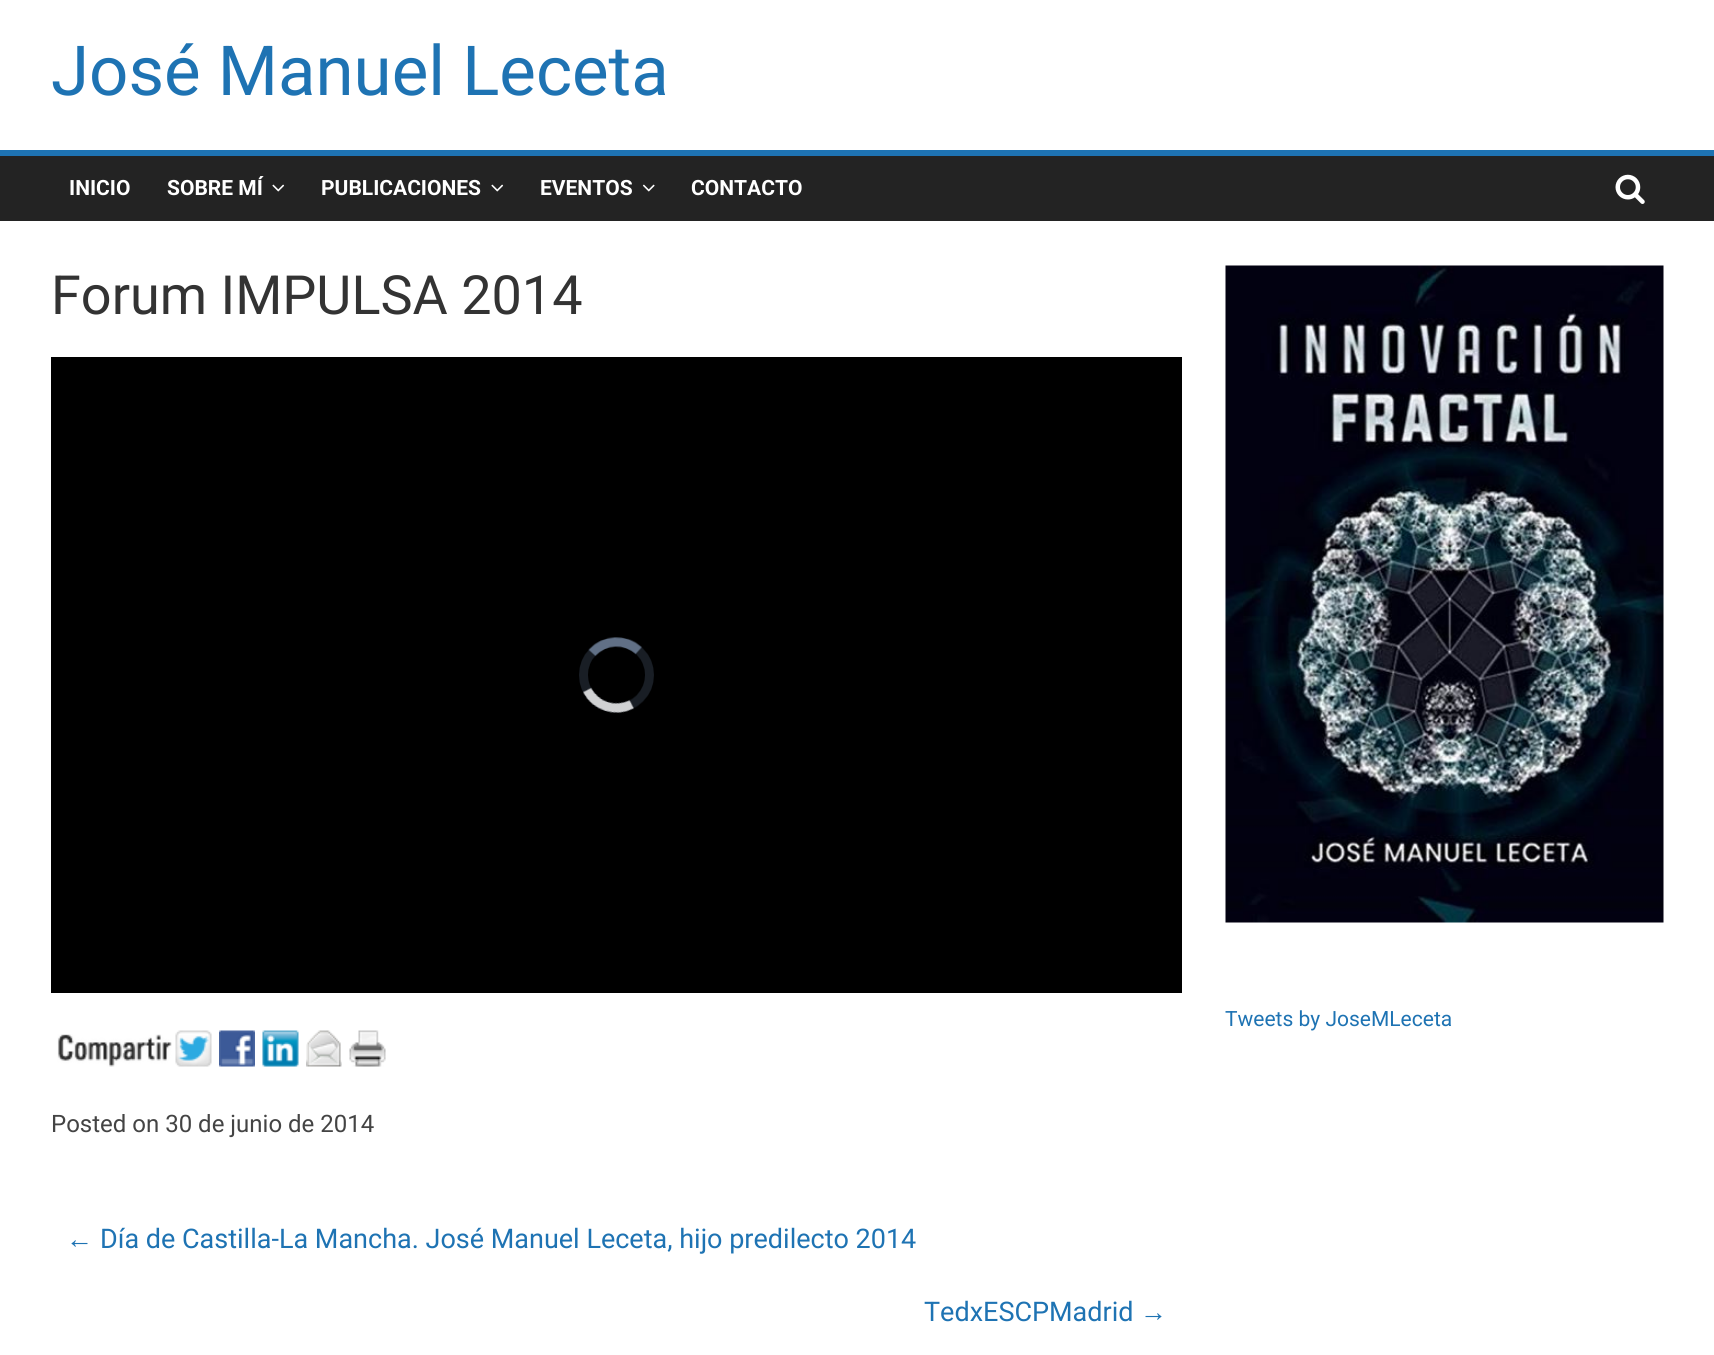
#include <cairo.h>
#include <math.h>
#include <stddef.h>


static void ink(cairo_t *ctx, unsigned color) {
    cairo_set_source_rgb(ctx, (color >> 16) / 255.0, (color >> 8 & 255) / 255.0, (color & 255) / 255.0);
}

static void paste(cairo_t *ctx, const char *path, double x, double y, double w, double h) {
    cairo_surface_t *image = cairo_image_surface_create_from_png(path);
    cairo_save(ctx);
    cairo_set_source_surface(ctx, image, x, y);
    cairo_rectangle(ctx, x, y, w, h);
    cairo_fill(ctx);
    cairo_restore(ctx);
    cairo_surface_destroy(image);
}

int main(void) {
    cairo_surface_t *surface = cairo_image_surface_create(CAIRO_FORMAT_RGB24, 1714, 1355);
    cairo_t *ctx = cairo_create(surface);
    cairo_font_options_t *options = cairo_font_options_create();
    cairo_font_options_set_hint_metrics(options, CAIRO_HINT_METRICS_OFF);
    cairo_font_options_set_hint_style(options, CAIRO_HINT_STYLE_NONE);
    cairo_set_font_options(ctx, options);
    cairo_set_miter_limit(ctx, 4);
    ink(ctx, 0xFFFFFF);
    cairo_paint(ctx);
    cairo_select_font_face(ctx, "Roboto", CAIRO_FONT_SLANT_NORMAL, CAIRO_FONT_WEIGHT_NORMAL);
    cairo_set_font_size(ctx, 69);
    ink(ctx, 0x1E73B3);
    cairo_move_to(ctx, 51, 95);
    cairo_show_text(ctx, "José Manuel Leceta");
    ink(ctx, 0x232323);
    cairo_rectangle(ctx, 0, 156, 1714, 65);
    cairo_fill(ctx);
    ink(ctx, 0x1E73B3);
    cairo_rectangle(ctx, 0, 150, 1714, 6);
    cairo_fill(ctx);
    cairo_select_font_face(ctx, "Roboto", CAIRO_FONT_SLANT_NORMAL, CAIRO_FONT_WEIGHT_BOLD);
    cairo_set_font_size(ctx, 21);
    ink(ctx, 0xFFFFFF);
    cairo_move_to(ctx, 69, 195);
    cairo_show_text(ctx, "INICIO");
    cairo_move_to(ctx, 167, 195);
    cairo_show_text(ctx, "SOBRE MÍ");
    paste(ctx, "media/1.png", 272, 184, 13, 8);
    cairo_move_to(ctx, 321, 195);
    cairo_show_text(ctx, "PUBLICACIONES");
    paste(ctx, "media/1.png", 491, 184, 13, 8);
    cairo_move_to(ctx, 540, 195);
    cairo_show_text(ctx, "EVENTOS");
    paste(ctx, "media/2.png", 642, 184, 13, 8);
    cairo_move_to(ctx, 691, 195);
    cairo_show_text(ctx, "CONTACTO");
    paste(ctx, "media/3.png", 1615, 174, 30, 30);
    cairo_select_font_face(ctx, "Roboto", CAIRO_FONT_SLANT_NORMAL, CAIRO_FONT_WEIGHT_NORMAL);
    cairo_set_font_size(ctx, 54);
    ink(ctx, 0x333333);
    cairo_move_to(ctx, 51, 314);
    cairo_show_text(ctx, "Forum IMPULSA 2014");
    paste(ctx, "media/4.png", 51, 357, 1131, 636);
    paste(ctx, "media/5.png", 57, 1034, 115, 33);
    paste(ctx, "media/6.png", 175, 1030, 37, 37);
    paste(ctx, "media/7.png", 219, 1030, 36, 37);
    paste(ctx, "media/8.png", 262, 1030, 37, 37);
    paste(ctx, "media/9.png", 306, 1030, 36, 37);
    paste(ctx, "media/10.png", 349, 1030, 37, 37);
    cairo_set_font_size(ctx, 24);
    ink(ctx, 0x444444);
    cairo_move_to(ctx, 51, 1132);
    cairo_show_text(ctx, "Posted on 30 de junio de 2014");
    cairo_select_font_face(ctx, "Liberation Serif", CAIRO_FONT_SLANT_NORMAL, CAIRO_FONT_WEIGHT_NORMAL);
    cairo_set_font_size(ctx, 27);
    ink(ctx, 0x1E73B3);
    cairo_move_to(ctx, 66, 1248);
    cairo_show_text(ctx, "←");
    cairo_select_font_face(ctx, "Roboto", CAIRO_FONT_SLANT_NORMAL, CAIRO_FONT_WEIGHT_NORMAL);
    cairo_move_to(ctx, 100, 1248);
    cairo_show_text(ctx, "Día de Castilla-La Mancha. José Manuel Leceta, hijo predilecto 2014");
    cairo_move_to(ctx, 924, 1321);
    cairo_show_text(ctx, "TedxESCPMadrid");
    cairo_select_font_face(ctx, "Liberation Serif", CAIRO_FONT_SLANT_NORMAL, CAIRO_FONT_WEIGHT_NORMAL);
    cairo_move_to(ctx, 1140, 1321);
    cairo_show_text(ctx, "→");
    paste(ctx, "media/11.png", 1225, 265, 439, 658);
    cairo_select_font_face(ctx, "Roboto", CAIRO_FONT_SLANT_NORMAL, CAIRO_FONT_WEIGHT_NORMAL);
    cairo_set_font_size(ctx, 21);
    cairo_move_to(ctx, 1225, 1026);
    cairo_show_text(ctx, "Tweets by JoseMLeceta");
    cairo_surface_write_to_png(surface, "image.png");
    cairo_font_options_destroy(options);
    cairo_destroy(ctx);
    cairo_surface_destroy(surface);
    return 0;
}
